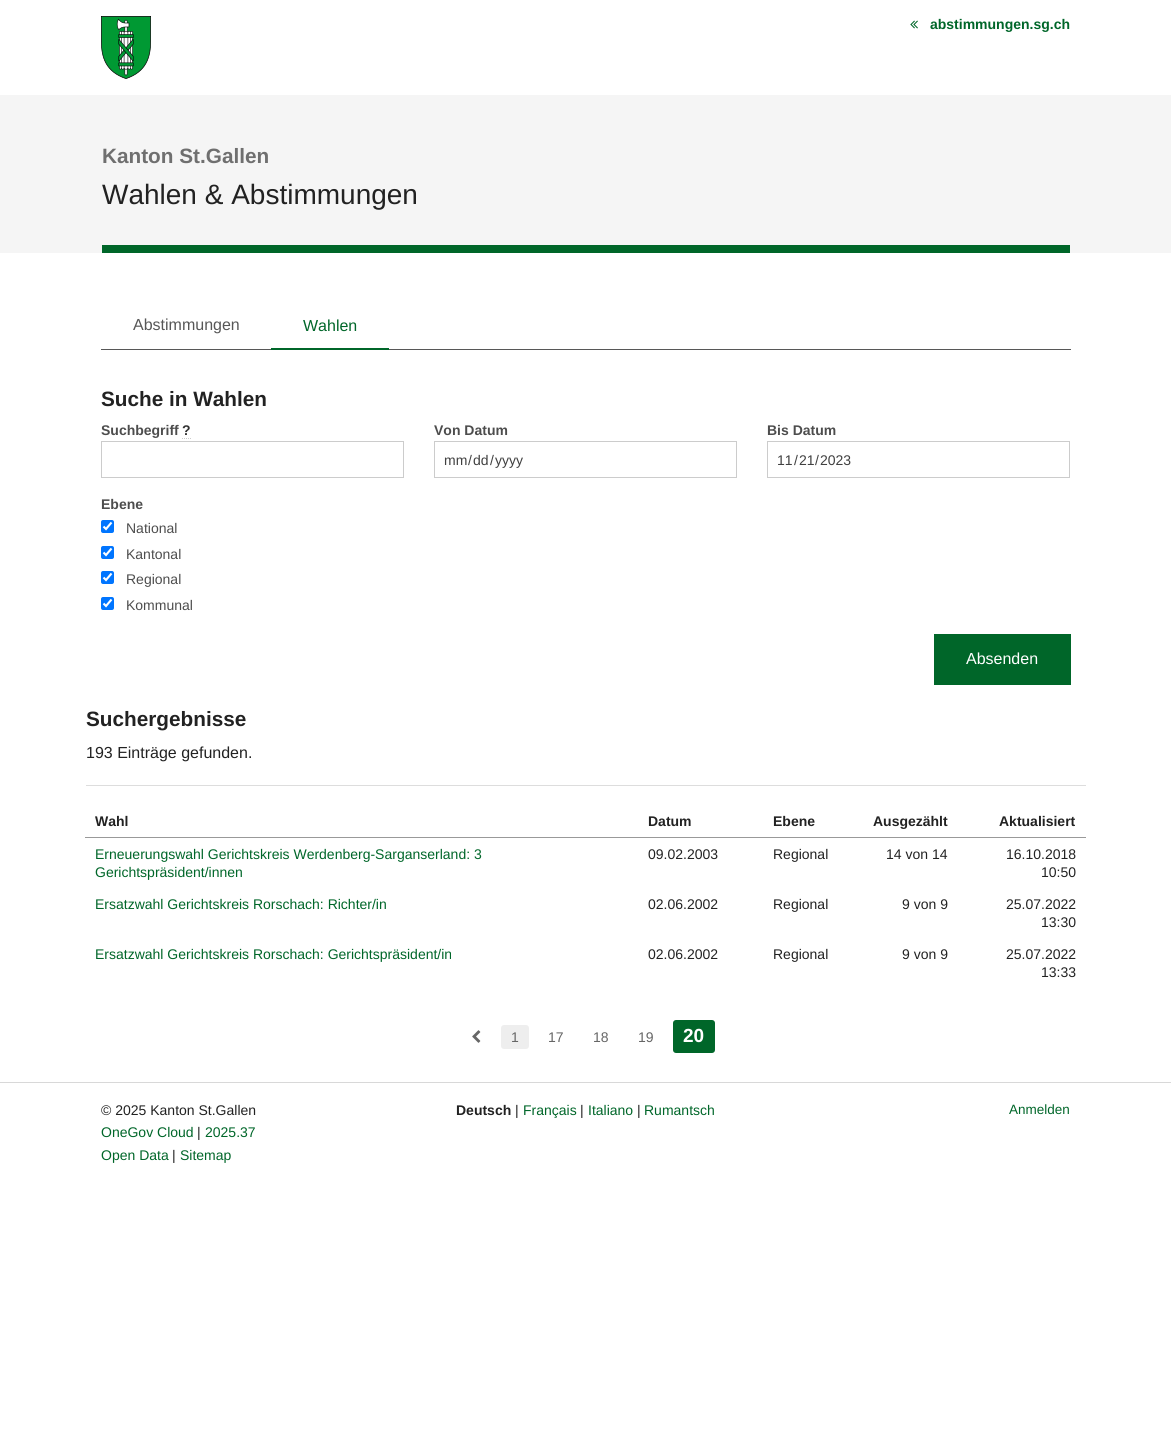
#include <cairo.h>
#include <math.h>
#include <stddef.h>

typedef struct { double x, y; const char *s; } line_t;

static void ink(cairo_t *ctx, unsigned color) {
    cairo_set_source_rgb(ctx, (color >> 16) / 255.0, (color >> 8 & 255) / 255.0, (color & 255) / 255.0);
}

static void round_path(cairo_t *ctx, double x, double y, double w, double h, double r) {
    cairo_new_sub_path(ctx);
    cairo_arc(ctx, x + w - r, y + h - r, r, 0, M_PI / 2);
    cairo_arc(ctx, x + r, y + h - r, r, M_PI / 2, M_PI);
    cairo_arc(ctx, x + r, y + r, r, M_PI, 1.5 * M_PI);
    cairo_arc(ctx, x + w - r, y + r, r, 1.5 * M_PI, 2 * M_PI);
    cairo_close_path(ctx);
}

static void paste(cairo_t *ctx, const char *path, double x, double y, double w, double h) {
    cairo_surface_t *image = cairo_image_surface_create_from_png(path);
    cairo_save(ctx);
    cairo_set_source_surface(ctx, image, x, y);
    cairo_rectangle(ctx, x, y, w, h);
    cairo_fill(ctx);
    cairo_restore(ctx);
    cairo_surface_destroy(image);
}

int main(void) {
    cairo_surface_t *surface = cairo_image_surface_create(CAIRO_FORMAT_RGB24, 1171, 1437);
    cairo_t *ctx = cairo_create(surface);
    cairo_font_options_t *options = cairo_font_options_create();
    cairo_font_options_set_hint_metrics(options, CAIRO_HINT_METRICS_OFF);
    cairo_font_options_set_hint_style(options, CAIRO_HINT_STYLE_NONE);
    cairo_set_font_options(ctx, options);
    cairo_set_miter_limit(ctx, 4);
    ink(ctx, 0xFFFFFF);
    cairo_paint(ctx);
    paste(ctx, "media/1.png", 101, 16, 50, 63);
    paste(ctx, "media/2.png", 910, 20, 8, 9);
    cairo_select_font_face(ctx, "Liberation Sans", CAIRO_FONT_SLANT_NORMAL, CAIRO_FONT_WEIGHT_BOLD);
    cairo_set_font_size(ctx, 14);
    ink(ctx, 0x006629);
    cairo_move_to(ctx, 930, 29);
    cairo_show_text(ctx, "abstimmungen.sg.ch");
    ink(ctx, 0xF5F5F5);
    cairo_rectangle(ctx, 0, 95, 1171, 158);
    cairo_fill(ctx);
    cairo_set_font_size(ctx, 20.75);
    ink(ctx, 0x6F6F6F);
    cairo_move_to(ctx, 102, 163);
    cairo_show_text(ctx, "Kanton St.Gallen");
    cairo_select_font_face(ctx, "Liberation Sans", CAIRO_FONT_SLANT_NORMAL, CAIRO_FONT_WEIGHT_NORMAL);
    cairo_set_font_size(ctx, 28);
    ink(ctx, 0x222222);
    cairo_move_to(ctx, 102, 204);
    cairo_show_text(ctx, "Wahlen & Abstimmungen");
    ink(ctx, 0x006629);
    cairo_rectangle(ctx, 102, 245, 968, 8);
    cairo_fill(ctx);
    ink(ctx, 0x575757);
    cairo_rectangle(ctx, 101, 349, 970, 1);
    cairo_fill(ctx);
    cairo_set_font_size(ctx, 16);
    cairo_move_to(ctx, 133, 330);
    cairo_show_text(ctx, "Abstimmungen");
    ink(ctx, 0x006629);
    cairo_rectangle(ctx, 271, 348, 118, 2);
    cairo_fill(ctx);
    cairo_move_to(ctx, 303, 331);
    cairo_show_text(ctx, "Wahlen");
    cairo_select_font_face(ctx, "Liberation Sans", CAIRO_FONT_SLANT_NORMAL, CAIRO_FONT_WEIGHT_BOLD);
    cairo_set_font_size(ctx, 20.75);
    ink(ctx, 0x222222);
    cairo_move_to(ctx, 101, 406);
    cairo_show_text(ctx, "Suche in Wahlen");
    cairo_set_font_size(ctx, 14);
    ink(ctx, 0x4D4D4D);
    cairo_move_to(ctx, 101, 435);
    cairo_show_text(ctx, "Suchbegriff");
    ink(ctx, 0x333333);
    cairo_move_to(ctx, 182, 435);
    cairo_show_text(ctx, "?");
    cairo_new_path(ctx);
    cairo_move_to(ctx, 182, 438.5);
    cairo_line_to(ctx, 191, 438.5);
    ink(ctx, 0xCCCCCC);
    cairo_set_line_width(ctx, 1);
    cairo_set_dash(ctx, (double[]){1, 1}, 2, 0);
    cairo_stroke(ctx);
    cairo_rectangle(ctx, 101.5, 441.5, 302, 36);
    cairo_set_dash(ctx, NULL, 0, 0);
    cairo_stroke(ctx);
    ink(ctx, 0x4D4D4D);
    cairo_move_to(ctx, 434, 435);
    cairo_show_text(ctx, "Von Datum");
    cairo_rectangle(ctx, 434.5, 441.5, 302, 36);
    ink(ctx, 0xCCCCCC);
    cairo_stroke(ctx);
    cairo_select_font_face(ctx, "Liberation Sans", CAIRO_FONT_SLANT_NORMAL, CAIRO_FONT_WEIGHT_NORMAL);
    ink(ctx, 0x404040);
    {
        static const line_t items[] = {
            {444, 465, "mm"},
            {468, 465, "/"},
            {473, 465, "dd"},
            {490, 465, "/"},
            {495, 465, "yyyy"},
        };
        for (size_t i = 0; i < sizeof items / sizeof *items; i++) {
            cairo_move_to(ctx, items[i].x, items[i].y);
            cairo_show_text(ctx, items[i].s);
        }
    }
    cairo_select_font_face(ctx, "Liberation Sans", CAIRO_FONT_SLANT_NORMAL, CAIRO_FONT_WEIGHT_BOLD);
    ink(ctx, 0x4D4D4D);
    cairo_move_to(ctx, 767, 435);
    cairo_show_text(ctx, "Bis Datum");
    cairo_rectangle(ctx, 767.5, 441.5, 302, 36);
    ink(ctx, 0xCCCCCC);
    cairo_stroke(ctx);
    cairo_select_font_face(ctx, "Liberation Sans", CAIRO_FONT_SLANT_NORMAL, CAIRO_FONT_WEIGHT_NORMAL);
    ink(ctx, 0x404040);
    {
        static const line_t items[] = {
            {777, 465, "11"},
            {794, 465, "/"},
            {799, 465, "21"},
            {815, 465, "/"},
            {820, 465, "2023"},
        };
        for (size_t i = 0; i < sizeof items / sizeof *items; i++) {
            cairo_move_to(ctx, items[i].x, items[i].y);
            cairo_show_text(ctx, items[i].s);
        }
    }
    cairo_select_font_face(ctx, "Liberation Sans", CAIRO_FONT_SLANT_NORMAL, CAIRO_FONT_WEIGHT_BOLD);
    ink(ctx, 0x4D4D4D);
    cairo_move_to(ctx, 101, 509);
    cairo_show_text(ctx, "Ebene");
    ink(ctx, 0x0075FF);
    round_path(ctx, 101, 520, 13, 13, 2);
    cairo_fill(ctx);
    cairo_new_path(ctx);
    cairo_move_to(ctx, 103.5, 526.5);
    cairo_line_to(ctx, 106, 529);
    cairo_line_to(ctx, 111.5, 522.5);
    ink(ctx, 0xFFFFFF);
    cairo_set_line_width(ctx, 2.1);
    cairo_stroke(ctx);
    cairo_select_font_face(ctx, "Liberation Sans", CAIRO_FONT_SLANT_NORMAL, CAIRO_FONT_WEIGHT_NORMAL);
    ink(ctx, 0x4D4D4D);
    cairo_move_to(ctx, 126, 533);
    cairo_show_text(ctx, "National");
    ink(ctx, 0x0075FF);
    round_path(ctx, 101, 546, 13, 13, 2);
    cairo_fill(ctx);
    cairo_new_path(ctx);
    cairo_move_to(ctx, 103.5, 552.5);
    cairo_line_to(ctx, 106, 555);
    cairo_line_to(ctx, 111.5, 548.5);
    ink(ctx, 0xFFFFFF);
    cairo_stroke(ctx);
    ink(ctx, 0x4D4D4D);
    cairo_move_to(ctx, 126, 559);
    cairo_show_text(ctx, "Kantonal");
    ink(ctx, 0x0075FF);
    round_path(ctx, 101, 571, 13, 13, 2);
    cairo_fill(ctx);
    cairo_new_path(ctx);
    cairo_move_to(ctx, 103.5, 577.5);
    cairo_line_to(ctx, 106, 580);
    cairo_line_to(ctx, 111.5, 573.5);
    ink(ctx, 0xFFFFFF);
    cairo_stroke(ctx);
    ink(ctx, 0x4D4D4D);
    cairo_move_to(ctx, 126, 584);
    cairo_show_text(ctx, "Regional");
    ink(ctx, 0x0075FF);
    round_path(ctx, 101, 597, 13, 13, 2);
    cairo_fill(ctx);
    cairo_new_path(ctx);
    cairo_move_to(ctx, 103.5, 603.5);
    cairo_line_to(ctx, 106, 606);
    cairo_line_to(ctx, 111.5, 599.5);
    ink(ctx, 0xFFFFFF);
    cairo_stroke(ctx);
    ink(ctx, 0x4D4D4D);
    cairo_move_to(ctx, 126, 610);
    cairo_show_text(ctx, "Kommunal");
    ink(ctx, 0x006629);
    cairo_rectangle(ctx, 934, 634, 137, 51);
    cairo_fill(ctx);
    cairo_set_font_size(ctx, 16);
    ink(ctx, 0xFFFFFF);
    cairo_move_to(ctx, 966, 664);
    cairo_show_text(ctx, "Absenden");
    cairo_select_font_face(ctx, "Liberation Sans", CAIRO_FONT_SLANT_NORMAL, CAIRO_FONT_WEIGHT_BOLD);
    cairo_set_font_size(ctx, 20.75);
    ink(ctx, 0x222222);
    cairo_move_to(ctx, 86, 726);
    cairo_show_text(ctx, "Suchergebnisse");
    cairo_select_font_face(ctx, "Liberation Sans", CAIRO_FONT_SLANT_NORMAL, CAIRO_FONT_WEIGHT_NORMAL);
    cairo_set_font_size(ctx, 16);
    cairo_move_to(ctx, 86, 758);
    cairo_show_text(ctx, "193 Einträge gefunden.");
    ink(ctx, 0xDDDDDD);
    cairo_rectangle(ctx, 86, 785, 1000, 1);
    cairo_fill(ctx);
    cairo_select_font_face(ctx, "Liberation Sans", CAIRO_FONT_SLANT_NORMAL, CAIRO_FONT_WEIGHT_BOLD);
    cairo_set_font_size(ctx, 14);
    ink(ctx, 0x222222);
    {
        static const line_t items[] = {
            {95, 826, "Wahl"},
            {648, 826, "Datum"},
            {773, 826, "Ebene"},
            {873, 826, "Ausgezählt"},
        };
        for (size_t i = 0; i < sizeof items / sizeof *items; i++) {
            cairo_move_to(ctx, items[i].x, items[i].y);
            cairo_show_text(ctx, items[i].s);
        }
    }
    ink(ctx, 0x999999);
    cairo_rectangle(ctx, 85, 837, 1001, 1);
    cairo_fill(ctx);
    ink(ctx, 0x222222);
    cairo_move_to(ctx, 999, 826);
    cairo_show_text(ctx, "Aktualisiert");
    cairo_select_font_face(ctx, "Liberation Sans", CAIRO_FONT_SLANT_NORMAL, CAIRO_FONT_WEIGHT_NORMAL);
    ink(ctx, 0x006629);
    cairo_move_to(ctx, 95, 859);
    cairo_show_text(ctx, "Erneuerungswahl Gerichtskreis Werdenberg-Sarganserland: 3");
    cairo_move_to(ctx, 95, 877);
    cairo_show_text(ctx, "Gerichtspräsident/innen");
    ink(ctx, 0x222222);
    {
        static const line_t items[] = {
            {648, 859, "09.02.2003"},
            {773, 859, "Regional"},
            {886, 859, "14 von 14"},
            {1006, 859, "16.10.2018"},
            {1041, 877, "10:50"},
        };
        for (size_t i = 0; i < sizeof items / sizeof *items; i++) {
            cairo_move_to(ctx, items[i].x, items[i].y);
            cairo_show_text(ctx, items[i].s);
        }
    }
    ink(ctx, 0x006629);
    cairo_move_to(ctx, 95, 909);
    cairo_show_text(ctx, "Ersatzwahl Gerichtskreis Rorschach: Richter/in");
    ink(ctx, 0x222222);
    {
        static const line_t items[] = {
            {648, 909, "02.06.2002"},
            {773, 909, "Regional"},
            {902, 909, "9 von 9"},
            {1006, 909, "25.07.2022"},
            {1041, 927, "13:30"},
        };
        for (size_t i = 0; i < sizeof items / sizeof *items; i++) {
            cairo_move_to(ctx, items[i].x, items[i].y);
            cairo_show_text(ctx, items[i].s);
        }
    }
    ink(ctx, 0x006629);
    cairo_move_to(ctx, 95, 959);
    cairo_show_text(ctx, "Ersatzwahl Gerichtskreis Rorschach: Gerichtspräsident/in");
    ink(ctx, 0x222222);
    {
        static const line_t items[] = {
            {648, 959, "02.06.2002"},
            {773, 959, "Regional"},
            {902, 959, "9 von 9"},
            {1006, 959, "25.07.2022"},
            {1041, 977, "13:33"},
        };
        for (size_t i = 0; i < sizeof items / sizeof *items; i++) {
            cairo_move_to(ctx, items[i].x, items[i].y);
            cairo_show_text(ctx, items[i].s);
        }
    }
    paste(ctx, "media/3.png", 472, 1030, 9, 13);
    ink(ctx, 0xEEEEEE);
    round_path(ctx, 501, 1025, 28, 24, 3);
    cairo_fill(ctx);
    ink(ctx, 0x666666);
    {
        static const line_t items[] = {
            {511, 1042, "1"},
            {548, 1042, "17"},
            {593, 1042, "18"},
            {638, 1042, "19"},
        };
        for (size_t i = 0; i < sizeof items / sizeof *items; i++) {
            cairo_move_to(ctx, items[i].x, items[i].y);
            cairo_show_text(ctx, items[i].s);
        }
    }
    ink(ctx, 0x006629);
    round_path(ctx, 673, 1020, 42, 33, 3);
    cairo_fill(ctx);
    cairo_select_font_face(ctx, "Liberation Sans", CAIRO_FONT_SLANT_NORMAL, CAIRO_FONT_WEIGHT_BOLD);
    cairo_set_font_size(ctx, 19);
    ink(ctx, 0xFFFFFF);
    cairo_move_to(ctx, 683, 1042);
    cairo_show_text(ctx, "20");
    ink(ctx, 0xD8D8D8);
    cairo_rectangle(ctx, 0, 1082, 1171, 1);
    cairo_fill(ctx);
    cairo_select_font_face(ctx, "Liberation Sans", CAIRO_FONT_SLANT_NORMAL, CAIRO_FONT_WEIGHT_NORMAL);
    cairo_set_font_size(ctx, 14);
    ink(ctx, 0x222222);
    cairo_move_to(ctx, 101, 1115);
    cairo_show_text(ctx, "© 2025 Kanton St.Gallen");
    ink(ctx, 0x006629);
    cairo_move_to(ctx, 101, 1137);
    cairo_show_text(ctx, "OneGov Cloud");
    ink(ctx, 0x222222);
    cairo_move_to(ctx, 197, 1137);
    cairo_show_text(ctx, "|");
    ink(ctx, 0x006629);
    cairo_move_to(ctx, 205, 1137);
    cairo_show_text(ctx, "2025.37");
    cairo_move_to(ctx, 101, 1160);
    cairo_show_text(ctx, "Open Data");
    ink(ctx, 0x222222);
    cairo_move_to(ctx, 172, 1160);
    cairo_show_text(ctx, "|");
    ink(ctx, 0x006629);
    cairo_move_to(ctx, 180, 1160);
    cairo_show_text(ctx, "Sitemap");
    cairo_select_font_face(ctx, "Liberation Sans", CAIRO_FONT_SLANT_NORMAL, CAIRO_FONT_WEIGHT_BOLD);
    ink(ctx, 0x222222);
    cairo_move_to(ctx, 456, 1115);
    cairo_show_text(ctx, "Deutsch");
    cairo_select_font_face(ctx, "Liberation Sans", CAIRO_FONT_SLANT_NORMAL, CAIRO_FONT_WEIGHT_NORMAL);
    cairo_move_to(ctx, 515, 1115);
    cairo_show_text(ctx, "|");
    ink(ctx, 0x006629);
    cairo_move_to(ctx, 523, 1115);
    cairo_show_text(ctx, "Français");
    ink(ctx, 0x222222);
    cairo_move_to(ctx, 580, 1115);
    cairo_show_text(ctx, "|");
    ink(ctx, 0x006629);
    cairo_move_to(ctx, 588, 1115);
    cairo_show_text(ctx, "Italiano");
    ink(ctx, 0x222222);
    cairo_move_to(ctx, 637, 1115);
    cairo_show_text(ctx, "|");
    ink(ctx, 0x006629);
    cairo_move_to(ctx, 644, 1115);
    cairo_show_text(ctx, "Rumantsch");
    cairo_set_font_size(ctx, 13.5);
    cairo_move_to(ctx, 1009, 1114);
    cairo_show_text(ctx, "Anmelden");
    cairo_surface_write_to_png(surface, "image.png");
    cairo_font_options_destroy(options);
    cairo_destroy(ctx);
    cairo_surface_destroy(surface);
    return 0;
}
